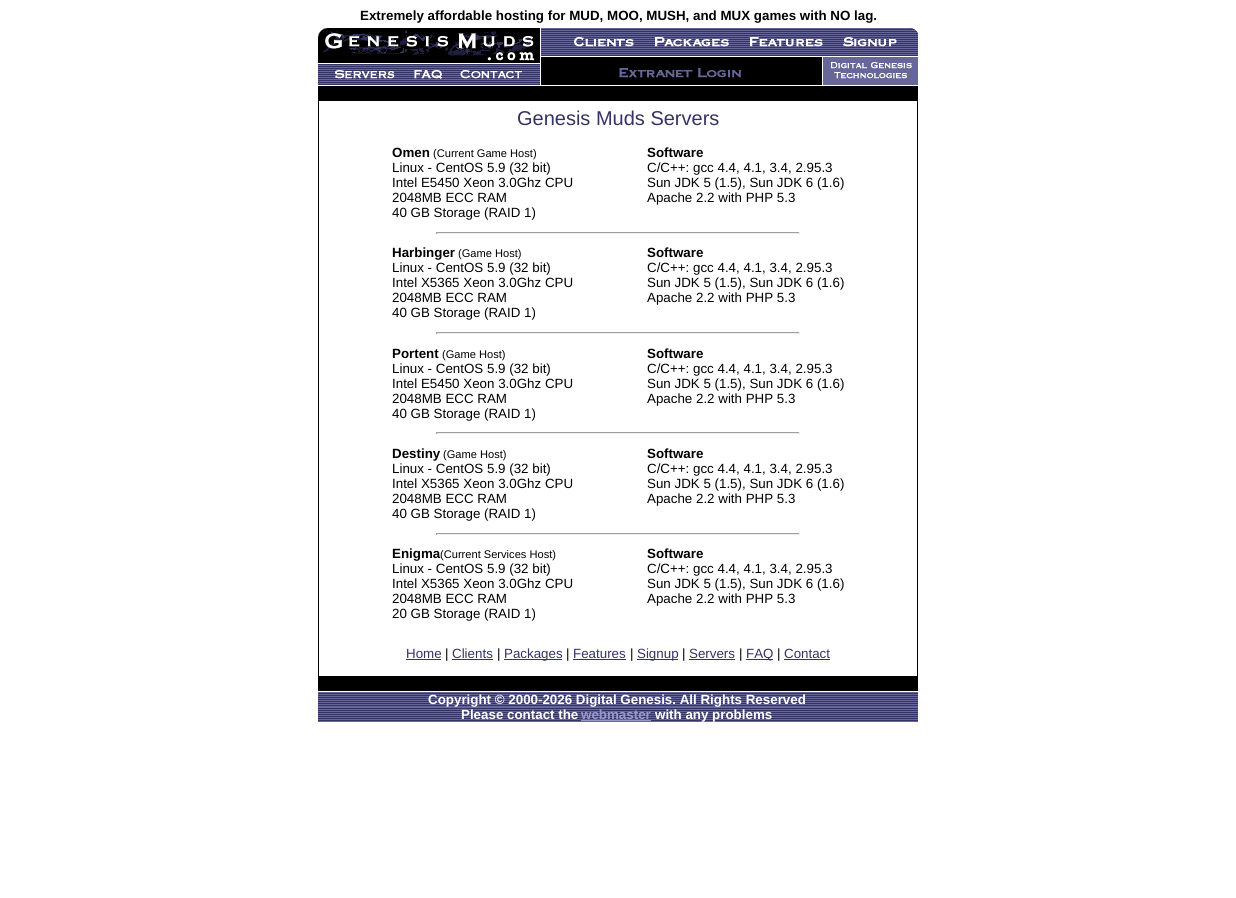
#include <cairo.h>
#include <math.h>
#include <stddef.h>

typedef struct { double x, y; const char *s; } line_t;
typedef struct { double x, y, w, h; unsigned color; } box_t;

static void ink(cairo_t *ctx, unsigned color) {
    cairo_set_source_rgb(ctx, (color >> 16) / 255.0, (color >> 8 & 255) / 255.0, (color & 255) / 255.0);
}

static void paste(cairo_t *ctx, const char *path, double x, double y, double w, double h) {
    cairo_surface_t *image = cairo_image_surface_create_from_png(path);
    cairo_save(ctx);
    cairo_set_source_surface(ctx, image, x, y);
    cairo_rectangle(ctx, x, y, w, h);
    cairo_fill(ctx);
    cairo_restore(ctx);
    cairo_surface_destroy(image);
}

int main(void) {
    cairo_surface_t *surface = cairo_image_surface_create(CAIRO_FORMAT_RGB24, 1236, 898);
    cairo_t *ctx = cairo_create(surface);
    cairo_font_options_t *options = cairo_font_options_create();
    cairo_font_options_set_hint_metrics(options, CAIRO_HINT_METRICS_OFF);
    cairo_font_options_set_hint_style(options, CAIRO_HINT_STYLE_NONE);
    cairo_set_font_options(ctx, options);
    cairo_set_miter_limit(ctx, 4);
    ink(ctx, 0xFFFFFF);
    cairo_paint(ctx);
    cairo_select_font_face(ctx, "Liberation Sans", CAIRO_FONT_SLANT_NORMAL, CAIRO_FONT_WEIGHT_BOLD);
    cairo_set_font_size(ctx, 13.35);
    ink(ctx, 0x000000);
    cairo_move_to(ctx, 360, 20);
    cairo_show_text(ctx, "Extremely affordable hosting for MUD, MOO, MUSH, and MUX games with NO lag.");
    paste(ctx, "media/1.png", 318, 28, 600, 57);
    cairo_rectangle(ctx, 318, 86, 600, 15);
    cairo_fill(ctx);
    cairo_rectangle(ctx, 318, 101, 1, 575);
    cairo_fill(ctx);
    cairo_select_font_face(ctx, "Liberation Sans", CAIRO_FONT_SLANT_NORMAL, CAIRO_FONT_WEIGHT_NORMAL);
    cairo_set_font_size(ctx, 20);
    ink(ctx, 0x333366);
    cairo_move_to(ctx, 517, 125);
    cairo_show_text(ctx, "Genesis Muds Servers");
    cairo_select_font_face(ctx, "Liberation Sans", CAIRO_FONT_SLANT_NORMAL, CAIRO_FONT_WEIGHT_BOLD);
    cairo_set_font_size(ctx, 13.35);
    ink(ctx, 0x000000);
    cairo_move_to(ctx, 392, 157);
    cairo_show_text(ctx, "Omen");
    cairo_select_font_face(ctx, "Liberation Sans", CAIRO_FONT_SLANT_NORMAL, CAIRO_FONT_WEIGHT_NORMAL);
    cairo_set_font_size(ctx, 11.1);
    cairo_move_to(ctx, 433, 157);
    cairo_show_text(ctx, "(Current Game Host)");
    cairo_set_font_size(ctx, 13.35);
    {
        static const line_t items[] = {
            {392, 172, "Linux - CentOS 5.9 (32 bit)"},
            {392, 187, "Intel E5450 Xeon 3.0Ghz CPU"},
            {392, 202, "2048MB ECC RAM"},
            {392, 217, "40 GB Storage (RAID 1)"},
        };
        for (size_t i = 0; i < sizeof items / sizeof *items; i++) {
            cairo_move_to(ctx, items[i].x, items[i].y);
            cairo_show_text(ctx, items[i].s);
        }
    }
    cairo_select_font_face(ctx, "Liberation Sans", CAIRO_FONT_SLANT_NORMAL, CAIRO_FONT_WEIGHT_BOLD);
    cairo_move_to(ctx, 647, 157);
    cairo_show_text(ctx, "Software");
    cairo_select_font_face(ctx, "Liberation Sans", CAIRO_FONT_SLANT_NORMAL, CAIRO_FONT_WEIGHT_NORMAL);
    {
        static const line_t items[] = {
            {647, 172, "C/C++: gcc 4.4, 4.1, 3.4, 2.95.3"},
            {647, 187, "Sun JDK 5 (1.5), Sun JDK 6 (1.6)"},
            {647, 202, "Apache 2.2 with PHP 5.3"},
        };
        for (size_t i = 0; i < sizeof items / sizeof *items; i++) {
            cairo_move_to(ctx, items[i].x, items[i].y);
            cairo_show_text(ctx, items[i].s);
        }
    }
    {
        static const box_t items[] = {
            {436, 232, 364, 1, 0x9F9F9F},
            {799, 232, 1, 2, 0xEEEEEE},
            {436, 233, 364, 1, 0xEEEEEE},
            {436, 232, 1, 2, 0x9F9F9F},
        };
        for (size_t i = 0; i < sizeof items / sizeof *items; i++) {
            ink(ctx, items[i].color);
            cairo_rectangle(ctx, items[i].x, items[i].y, items[i].w, items[i].h);
            cairo_fill(ctx);
        }
    }
    cairo_select_font_face(ctx, "Liberation Sans", CAIRO_FONT_SLANT_NORMAL, CAIRO_FONT_WEIGHT_BOLD);
    ink(ctx, 0x000000);
    cairo_move_to(ctx, 392, 257);
    cairo_show_text(ctx, "Harbinger");
    cairo_select_font_face(ctx, "Liberation Sans", CAIRO_FONT_SLANT_NORMAL, CAIRO_FONT_WEIGHT_NORMAL);
    cairo_set_font_size(ctx, 11.1);
    cairo_move_to(ctx, 458, 257);
    cairo_show_text(ctx, "(Game Host)");
    cairo_set_font_size(ctx, 13.35);
    {
        static const line_t items[] = {
            {392, 272, "Linux - CentOS 5.9 (32 bit)"},
            {392, 287, "Intel X5365 Xeon 3.0Ghz CPU"},
            {392, 302, "2048MB ECC RAM"},
            {392, 317, "40 GB Storage (RAID 1)"},
        };
        for (size_t i = 0; i < sizeof items / sizeof *items; i++) {
            cairo_move_to(ctx, items[i].x, items[i].y);
            cairo_show_text(ctx, items[i].s);
        }
    }
    cairo_select_font_face(ctx, "Liberation Sans", CAIRO_FONT_SLANT_NORMAL, CAIRO_FONT_WEIGHT_BOLD);
    cairo_move_to(ctx, 647, 257);
    cairo_show_text(ctx, "Software");
    cairo_select_font_face(ctx, "Liberation Sans", CAIRO_FONT_SLANT_NORMAL, CAIRO_FONT_WEIGHT_NORMAL);
    {
        static const line_t items[] = {
            {647, 272, "C/C++: gcc 4.4, 4.1, 3.4, 2.95.3"},
            {647, 287, "Sun JDK 5 (1.5), Sun JDK 6 (1.6)"},
            {647, 302, "Apache 2.2 with PHP 5.3"},
        };
        for (size_t i = 0; i < sizeof items / sizeof *items; i++) {
            cairo_move_to(ctx, items[i].x, items[i].y);
            cairo_show_text(ctx, items[i].s);
        }
    }
    {
        static const box_t items[] = {
            {436, 332, 364, 1, 0x9F9F9F},
            {799, 332, 1, 2, 0xEEEEEE},
            {436, 333, 364, 1, 0xEEEEEE},
            {436, 332, 1, 2, 0x9F9F9F},
        };
        for (size_t i = 0; i < sizeof items / sizeof *items; i++) {
            ink(ctx, items[i].color);
            cairo_rectangle(ctx, items[i].x, items[i].y, items[i].w, items[i].h);
            cairo_fill(ctx);
        }
    }
    cairo_select_font_face(ctx, "Liberation Sans", CAIRO_FONT_SLANT_NORMAL, CAIRO_FONT_WEIGHT_BOLD);
    ink(ctx, 0x000000);
    cairo_move_to(ctx, 392, 358);
    cairo_show_text(ctx, "Portent");
    cairo_select_font_face(ctx, "Liberation Sans", CAIRO_FONT_SLANT_NORMAL, CAIRO_FONT_WEIGHT_NORMAL);
    cairo_set_font_size(ctx, 11.1);
    cairo_move_to(ctx, 442, 358);
    cairo_show_text(ctx, "(Game Host)");
    cairo_set_font_size(ctx, 13.35);
    {
        static const line_t items[] = {
            {392, 373, "Linux - CentOS 5.9 (32 bit)"},
            {392, 388, "Intel E5450 Xeon 3.0Ghz CPU"},
            {392, 403, "2048MB ECC RAM"},
            {392, 418, "40 GB Storage (RAID 1)"},
        };
        for (size_t i = 0; i < sizeof items / sizeof *items; i++) {
            cairo_move_to(ctx, items[i].x, items[i].y);
            cairo_show_text(ctx, items[i].s);
        }
    }
    cairo_select_font_face(ctx, "Liberation Sans", CAIRO_FONT_SLANT_NORMAL, CAIRO_FONT_WEIGHT_BOLD);
    cairo_move_to(ctx, 647, 358);
    cairo_show_text(ctx, "Software");
    cairo_select_font_face(ctx, "Liberation Sans", CAIRO_FONT_SLANT_NORMAL, CAIRO_FONT_WEIGHT_NORMAL);
    {
        static const line_t items[] = {
            {647, 373, "C/C++: gcc 4.4, 4.1, 3.4, 2.95.3"},
            {647, 388, "Sun JDK 5 (1.5), Sun JDK 6 (1.6)"},
            {647, 403, "Apache 2.2 with PHP 5.3"},
        };
        for (size_t i = 0; i < sizeof items / sizeof *items; i++) {
            cairo_move_to(ctx, items[i].x, items[i].y);
            cairo_show_text(ctx, items[i].s);
        }
    }
    {
        static const box_t items[] = {
            {436, 432, 364, 1, 0x9F9F9F},
            {799, 432, 1, 2, 0xEEEEEE},
            {436, 433, 364, 1, 0xEEEEEE},
            {436, 432, 1, 2, 0x9F9F9F},
        };
        for (size_t i = 0; i < sizeof items / sizeof *items; i++) {
            ink(ctx, items[i].color);
            cairo_rectangle(ctx, items[i].x, items[i].y, items[i].w, items[i].h);
            cairo_fill(ctx);
        }
    }
    cairo_select_font_face(ctx, "Liberation Sans", CAIRO_FONT_SLANT_NORMAL, CAIRO_FONT_WEIGHT_BOLD);
    ink(ctx, 0x000000);
    cairo_move_to(ctx, 392, 458);
    cairo_show_text(ctx, "Destiny");
    cairo_select_font_face(ctx, "Liberation Sans", CAIRO_FONT_SLANT_NORMAL, CAIRO_FONT_WEIGHT_NORMAL);
    cairo_set_font_size(ctx, 11.1);
    cairo_move_to(ctx, 443, 458);
    cairo_show_text(ctx, "(Game Host)");
    cairo_set_font_size(ctx, 13.35);
    {
        static const line_t items[] = {
            {392, 473, "Linux - CentOS 5.9 (32 bit)"},
            {392, 488, "Intel X5365 Xeon 3.0Ghz CPU"},
            {392, 503, "2048MB ECC RAM"},
            {392, 518, "40 GB Storage (RAID 1)"},
        };
        for (size_t i = 0; i < sizeof items / sizeof *items; i++) {
            cairo_move_to(ctx, items[i].x, items[i].y);
            cairo_show_text(ctx, items[i].s);
        }
    }
    cairo_select_font_face(ctx, "Liberation Sans", CAIRO_FONT_SLANT_NORMAL, CAIRO_FONT_WEIGHT_BOLD);
    cairo_move_to(ctx, 647, 458);
    cairo_show_text(ctx, "Software");
    cairo_select_font_face(ctx, "Liberation Sans", CAIRO_FONT_SLANT_NORMAL, CAIRO_FONT_WEIGHT_NORMAL);
    {
        static const line_t items[] = {
            {647, 473, "C/C++: gcc 4.4, 4.1, 3.4, 2.95.3"},
            {647, 488, "Sun JDK 5 (1.5), Sun JDK 6 (1.6)"},
            {647, 503, "Apache 2.2 with PHP 5.3"},
        };
        for (size_t i = 0; i < sizeof items / sizeof *items; i++) {
            cairo_move_to(ctx, items[i].x, items[i].y);
            cairo_show_text(ctx, items[i].s);
        }
    }
    {
        static const box_t items[] = {
            {436, 533, 364, 1, 0x9F9F9F},
            {799, 533, 1, 2, 0xEEEEEE},
            {436, 534, 364, 1, 0xEEEEEE},
            {436, 533, 1, 2, 0x9F9F9F},
        };
        for (size_t i = 0; i < sizeof items / sizeof *items; i++) {
            ink(ctx, items[i].color);
            cairo_rectangle(ctx, items[i].x, items[i].y, items[i].w, items[i].h);
            cairo_fill(ctx);
        }
    }
    cairo_select_font_face(ctx, "Liberation Sans", CAIRO_FONT_SLANT_NORMAL, CAIRO_FONT_WEIGHT_BOLD);
    ink(ctx, 0x000000);
    cairo_move_to(ctx, 392, 558);
    cairo_show_text(ctx, "Enigma");
    cairo_select_font_face(ctx, "Liberation Sans", CAIRO_FONT_SLANT_NORMAL, CAIRO_FONT_WEIGHT_NORMAL);
    cairo_set_font_size(ctx, 11.1);
    cairo_move_to(ctx, 440, 558);
    cairo_show_text(ctx, "(Current Services Host)");
    cairo_set_font_size(ctx, 13.35);
    {
        static const line_t items[] = {
            {392, 573, "Linux - CentOS 5.9 (32 bit)"},
            {392, 588, "Intel X5365 Xeon 3.0Ghz CPU"},
            {392, 603, "2048MB ECC RAM"},
            {392, 618, "20 GB Storage (RAID 1)"},
        };
        for (size_t i = 0; i < sizeof items / sizeof *items; i++) {
            cairo_move_to(ctx, items[i].x, items[i].y);
            cairo_show_text(ctx, items[i].s);
        }
    }
    cairo_select_font_face(ctx, "Liberation Sans", CAIRO_FONT_SLANT_NORMAL, CAIRO_FONT_WEIGHT_BOLD);
    cairo_move_to(ctx, 647, 558);
    cairo_show_text(ctx, "Software");
    cairo_select_font_face(ctx, "Liberation Sans", CAIRO_FONT_SLANT_NORMAL, CAIRO_FONT_WEIGHT_NORMAL);
    {
        static const line_t items[] = {
            {647, 573, "C/C++: gcc 4.4, 4.1, 3.4, 2.95.3"},
            {647, 588, "Sun JDK 5 (1.5), Sun JDK 6 (1.6)"},
            {647, 603, "Apache 2.2 with PHP 5.3"},
        };
        for (size_t i = 0; i < sizeof items / sizeof *items; i++) {
            cairo_move_to(ctx, items[i].x, items[i].y);
            cairo_show_text(ctx, items[i].s);
        }
    }
    ink(ctx, 0x333366);
    cairo_move_to(ctx, 406, 658);
    cairo_show_text(ctx, "Home");
    cairo_rectangle(ctx, 406, 659, 35, 1);
    cairo_fill(ctx);
    ink(ctx, 0x000000);
    cairo_move_to(ctx, 445, 658);
    cairo_show_text(ctx, "|");
    ink(ctx, 0x333366);
    cairo_move_to(ctx, 452, 658);
    cairo_show_text(ctx, "Clients");
    cairo_rectangle(ctx, 452, 659, 41, 1);
    cairo_fill(ctx);
    ink(ctx, 0x000000);
    cairo_move_to(ctx, 497, 658);
    cairo_show_text(ctx, "|");
    ink(ctx, 0x333366);
    cairo_rectangle(ctx, 504, 659, 58, 1);
    cairo_fill(ctx);
    cairo_move_to(ctx, 504, 658);
    cairo_show_text(ctx, "Packages");
    ink(ctx, 0x000000);
    cairo_move_to(ctx, 566, 658);
    cairo_show_text(ctx, "|");
    ink(ctx, 0x333366);
    cairo_move_to(ctx, 573, 658);
    cairo_show_text(ctx, "Features");
    cairo_rectangle(ctx, 573, 659, 53, 1);
    cairo_fill(ctx);
    ink(ctx, 0x000000);
    cairo_move_to(ctx, 630, 658);
    cairo_show_text(ctx, "|");
    ink(ctx, 0x333366);
    cairo_rectangle(ctx, 637, 659, 41, 1);
    cairo_fill(ctx);
    cairo_move_to(ctx, 637, 658);
    cairo_show_text(ctx, "Signup");
    ink(ctx, 0x000000);
    cairo_move_to(ctx, 682, 658);
    cairo_show_text(ctx, "|");
    ink(ctx, 0x333366);
    cairo_move_to(ctx, 689, 658);
    cairo_show_text(ctx, "Servers");
    cairo_rectangle(ctx, 689, 659, 46, 1);
    cairo_fill(ctx);
    ink(ctx, 0x000000);
    cairo_move_to(ctx, 739, 658);
    cairo_show_text(ctx, "|");
    ink(ctx, 0x333366);
    cairo_rectangle(ctx, 746, 659, 27, 1);
    cairo_fill(ctx);
    cairo_move_to(ctx, 746, 658);
    cairo_show_text(ctx, "FAQ");
    ink(ctx, 0x000000);
    cairo_move_to(ctx, 777, 658);
    cairo_show_text(ctx, "|");
    ink(ctx, 0x333366);
    cairo_move_to(ctx, 784, 658);
    cairo_show_text(ctx, "Contact");
    {
        static const box_t items[] = {
            {784, 659, 46, 1, 0x333366},
            {917, 101, 1, 575, 0x000000},
            {318, 676, 600, 15, 0x000000},
        };
        for (size_t i = 0; i < sizeof items / sizeof *items; i++) {
            ink(ctx, items[i].color);
            cairo_rectangle(ctx, items[i].x, items[i].y, items[i].w, items[i].h);
            cairo_fill(ctx);
        }
    }
    paste(ctx, "media/2.png", 318, 692, 600, 15);
    cairo_select_font_face(ctx, "Liberation Sans", CAIRO_FONT_SLANT_NORMAL, CAIRO_FONT_WEIGHT_BOLD);
    ink(ctx, 0xFFFFFF);
    cairo_move_to(ctx, 428, 704);
    cairo_show_text(ctx, "Copyright © 2000-2026 Digital Genesis. All Rights Reserved");
    paste(ctx, "media/2.png", 318, 707, 600, 15);
    cairo_move_to(ctx, 461, 719);
    cairo_show_text(ctx, "Please contact the");
    ink(ctx, 0x9999CC);
    cairo_move_to(ctx, 581, 719);
    cairo_show_text(ctx, "webmaster");
    cairo_rectangle(ctx, 581, 720, 70, 1);
    cairo_fill(ctx);
    ink(ctx, 0xFFFFFF);
    cairo_move_to(ctx, 655, 719);
    cairo_show_text(ctx, "with any problems");
    cairo_surface_write_to_png(surface, "image.png");
    cairo_font_options_destroy(options);
    cairo_destroy(ctx);
    cairo_surface_destroy(surface);
    return 0;
}
